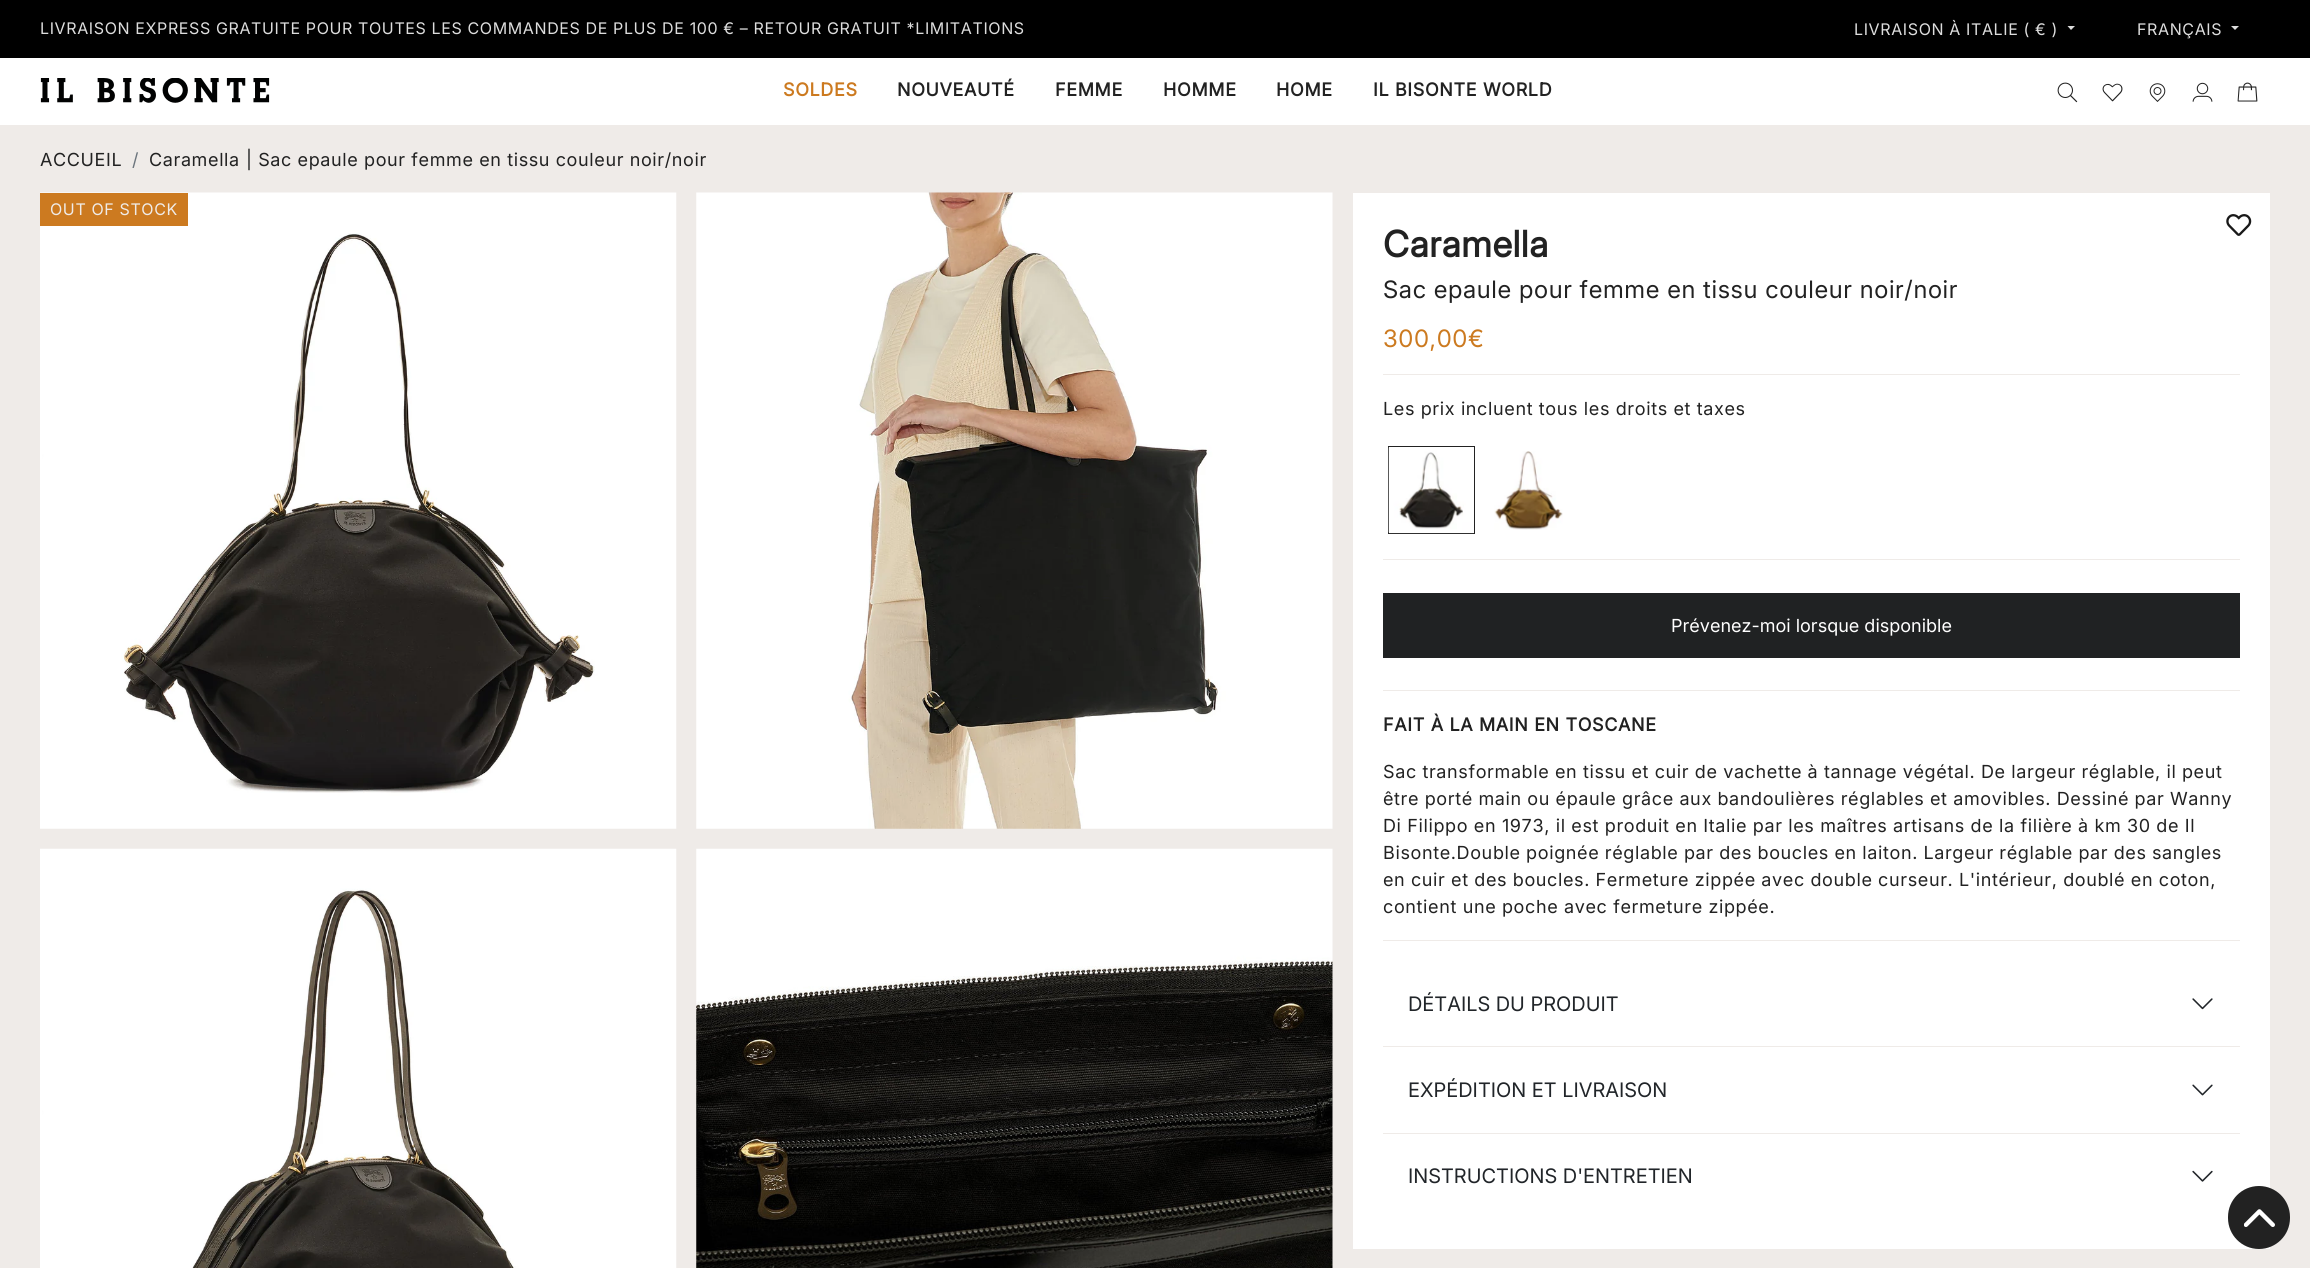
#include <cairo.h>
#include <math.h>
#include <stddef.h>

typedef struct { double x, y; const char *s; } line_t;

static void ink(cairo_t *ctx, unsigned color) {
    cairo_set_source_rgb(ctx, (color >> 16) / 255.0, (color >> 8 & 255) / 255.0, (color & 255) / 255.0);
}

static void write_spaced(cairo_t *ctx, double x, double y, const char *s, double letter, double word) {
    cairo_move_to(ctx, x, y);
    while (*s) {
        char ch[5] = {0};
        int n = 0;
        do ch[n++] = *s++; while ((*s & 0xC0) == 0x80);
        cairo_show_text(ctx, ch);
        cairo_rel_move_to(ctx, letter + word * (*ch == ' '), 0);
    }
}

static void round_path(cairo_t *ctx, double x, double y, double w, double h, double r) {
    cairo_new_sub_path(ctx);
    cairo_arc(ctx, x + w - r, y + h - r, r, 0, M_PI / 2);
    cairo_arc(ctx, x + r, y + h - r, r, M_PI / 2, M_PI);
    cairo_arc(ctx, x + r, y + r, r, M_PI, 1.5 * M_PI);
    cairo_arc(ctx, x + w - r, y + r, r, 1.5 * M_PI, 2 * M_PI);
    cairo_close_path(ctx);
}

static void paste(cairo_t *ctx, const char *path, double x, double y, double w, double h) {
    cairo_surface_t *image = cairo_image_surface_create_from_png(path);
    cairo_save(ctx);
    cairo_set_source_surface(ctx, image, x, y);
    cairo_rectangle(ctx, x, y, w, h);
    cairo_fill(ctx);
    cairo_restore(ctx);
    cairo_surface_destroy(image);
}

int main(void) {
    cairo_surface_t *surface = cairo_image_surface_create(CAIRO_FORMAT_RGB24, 2310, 1268);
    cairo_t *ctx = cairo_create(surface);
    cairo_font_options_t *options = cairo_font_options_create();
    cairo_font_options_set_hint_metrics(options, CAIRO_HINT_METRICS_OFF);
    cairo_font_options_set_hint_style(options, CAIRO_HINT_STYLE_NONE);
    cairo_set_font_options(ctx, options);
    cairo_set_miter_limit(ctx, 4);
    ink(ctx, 0xFFFFFF);
    cairo_paint(ctx);
    ink(ctx, 0x000000);
    cairo_rectangle(ctx, 0, 0, 2310, 58);
    cairo_fill(ctx);
    cairo_select_font_face(ctx, "Inter", CAIRO_FONT_SLANT_NORMAL, CAIRO_FONT_WEIGHT_NORMAL);
    cairo_set_font_size(ctx, 16);
    ink(ctx, 0xDDDDDD);
    write_spaced(ctx, 40, 34, "LIVRAISON EXPRESS GRATUITE POUR TOUTES LES COMMANDES DE PLUS DE 100 € – RETOUR GRATUIT *LIMITATIONS", 0.62, 0);
    write_spaced(ctx, 1854, 35, "LIVRAISON À ITALIE ( € )", 0.62, 0);
    cairo_new_path(ctx);
    cairo_move_to(ctx, 2067.5, 26);
    cairo_line_to(ctx, 2075, 26);
    cairo_line_to(ctx, 2071, 30);
    cairo_close_path(ctx);
    cairo_fill(ctx);
    write_spaced(ctx, 2137, 35, "FRANÇAIS", 0.62, 0);
    cairo_new_path(ctx);
    cairo_move_to(ctx, 2231, 26);
    cairo_line_to(ctx, 2239, 26);
    cairo_line_to(ctx, 2235, 30);
    cairo_close_path(ctx);
    cairo_fill(ctx);
    paste(ctx, "media/1.png", 40, 78, 230, 25);
    cairo_select_font_face(ctx, "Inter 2", CAIRO_FONT_SLANT_NORMAL, CAIRO_FONT_WEIGHT_BOLD);
    cairo_set_font_size(ctx, 18);
    ink(ctx, 0xCC7A20);
    write_spaced(ctx, 783, 96, "SOLDES", 0.62, 0);
    ink(ctx, 0x222222);
    {
        static const line_t items[] = {
            {897, 96, "NOUVEAUTÉ"},
            {1055, 96, "FEMME"},
            {1163, 96, "HOMME"},
            {1276, 96, "HOME"},
            {1373, 96, "IL BISONTE WORLD"},
        };
        for (size_t i = 0; i < sizeof items / sizeof *items; i++) {
            write_spaced(ctx, items[i].x, items[i].y, items[i].s, 0.62, 0);
        }
    }
    paste(ctx, "media/2.png", 2057, 82, 21, 21);
    paste(ctx, "media/3.png", 2102, 83, 21, 19);
    paste(ctx, "media/4.png", 2149, 83, 17, 19);
    paste(ctx, "media/5.png", 2192, 82, 21, 20);
    paste(ctx, "media/6.png", 2237, 82, 21, 20);
    ink(ctx, 0xEFEBE8);
    cairo_rectangle(ctx, 0, 125, 2310, 1143);
    cairo_fill(ctx);
    cairo_select_font_face(ctx, "Inter", CAIRO_FONT_SLANT_NORMAL, CAIRO_FONT_WEIGHT_NORMAL);
    ink(ctx, 0x222222);
    write_spaced(ctx, 40, 166, "ACCUEIL", 0.62, 0);
    ink(ctx, 0x6C757D);
    write_spaced(ctx, 132, 166, "/", 0.62, 0);
    ink(ctx, 0x222222);
    write_spaced(ctx, 149, 166, "Caramella", 0.62, 0);
    write_spaced(ctx, 246, 166, "| Sac epaule pour femme en tissu couleur noir/noir", 0.62, -0.1);
    paste(ctx, "media/7.png", 40, 192, 637, 637);
    paste(ctx, "media/8.png", 696, 192, 637, 637);
    ink(ctx, 0xCC7A20);
    cairo_rectangle(ctx, 40, 193, 148, 33);
    cairo_fill(ctx);
    cairo_set_font_size(ctx, 16);
    ink(ctx, 0xEFEBE8);
    write_spaced(ctx, 50, 215, "OUT OF STOCK", 0.62, 0);
    paste(ctx, "media/9.png", 40, 848, 637, 420);
    paste(ctx, "media/10.png", 696, 848, 637, 420);
    ink(ctx, 0xFFFFFF);
    cairo_rectangle(ctx, 1353, 193, 917, 1056);
    cairo_fill(ctx);
    paste(ctx, "media/11.png", 2226, 214, 26, 22);
    cairo_select_font_face(ctx, "Inter", CAIRO_FONT_SLANT_NORMAL, CAIRO_FONT_WEIGHT_BOLD);
    cairo_set_font_size(ctx, 36);
    ink(ctx, 0x222222);
    write_spaced(ctx, 1383, 257, "Caramella", 0.62, 0);
    cairo_select_font_face(ctx, "Inter 2", CAIRO_FONT_SLANT_NORMAL, CAIRO_FONT_WEIGHT_NORMAL);
    cairo_set_font_size(ctx, 24);
    write_spaced(ctx, 1383, 298, "Sac epaule pour femme en tissu couleur noir/noir", 0.62, 0);
    ink(ctx, 0xCC7A20);
    write_spaced(ctx, 1383, 347, "300,00€", 0.62, 0);
    ink(ctx, 0xEFEBE8);
    cairo_rectangle(ctx, 1383, 374, 857, 1);
    cairo_fill(ctx);
    cairo_select_font_face(ctx, "Inter", CAIRO_FONT_SLANT_NORMAL, CAIRO_FONT_WEIGHT_NORMAL);
    cairo_set_font_size(ctx, 18);
    ink(ctx, 0x222222);
    write_spaced(ctx, 1383, 415, "Les prix incluent tous les droits et taxes", 0.62, 0);
    cairo_rectangle(ctx, 1388.5, 446.5, 86, 87);
    cairo_set_line_width(ctx, 1);
    cairo_stroke(ctx);
    paste(ctx, "media/12.png", 1388, 447, 86, 87);
    paste(ctx, "media/13.png", 1494, 451, 69, 79);
    ink(ctx, 0xEFEBE8);
    cairo_rectangle(ctx, 1383, 559, 857, 1);
    cairo_fill(ctx);
    ink(ctx, 0x202223);
    cairo_rectangle(ctx, 1383, 593, 857, 65);
    cairo_fill(ctx);
    ink(ctx, 0xFFFFFF);
    cairo_move_to(ctx, 1671, 632);
    cairo_show_text(ctx, "Prévenez-moi lorsque disponible");
    ink(ctx, 0xEFEBE8);
    cairo_rectangle(ctx, 1383, 690, 857, 1);
    cairo_fill(ctx);
    cairo_select_font_face(ctx, "Inter 2", CAIRO_FONT_SLANT_NORMAL, CAIRO_FONT_WEIGHT_BOLD);
    ink(ctx, 0x222222);
    write_spaced(ctx, 1383, 731, "FAIT À LA MAIN EN TOSCANE", 0.62, 0);
    cairo_select_font_face(ctx, "Inter", CAIRO_FONT_SLANT_NORMAL, CAIRO_FONT_WEIGHT_NORMAL);
    write_spaced(ctx, 1383, 778, "Sac transformable en tissu et cuir de vachette à tannage végétal. De largeur réglable, il peut", 0.62, -0.1);
    write_spaced(ctx, 1383, 805, "être porté main ou épaule grâce aux bandoulières réglables et amovibles. Dessiné par Wanny", 0.62, -0.1);
    write_spaced(ctx, 1383, 832, "Di Filippo en 1973, il est produit en Italie par les maîtres artisans de la filière à km 30 de Il", 0.62, 0);
    write_spaced(ctx, 1383, 859, "Bisonte.Double poignée réglable par des boucles en laiton. Largeur réglable par des sangles", 0.62, -0.2);
    write_spaced(ctx, 1383, 886, "en cuir et des boucles. Fermeture zippée avec double curseur. L'intérieur, doublé en coton,", 0.62, -0.1);
    write_spaced(ctx, 1383, 913, "contient une poche avec fermeture zippée.", 0.62, 0);
    ink(ctx, 0xEFEBE8);
    cairo_rectangle(ctx, 1383, 940, 857, 1);
    cairo_fill(ctx);
    cairo_rectangle(ctx, 1383, 1046, 857, 1);
    cairo_fill(ctx);
    cairo_select_font_face(ctx, "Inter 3", CAIRO_FONT_SLANT_NORMAL, CAIRO_FONT_WEIGHT_NORMAL);
    cairo_set_font_size(ctx, 20);
    ink(ctx, 0x212529);
    cairo_move_to(ctx, 1408, 1011);
    cairo_show_text(ctx, "DÉTAILS DU PRODUIT");
    paste(ctx, "media/14.png", 2192, 998, 21, 12);
    ink(ctx, 0xEFEBE8);
    cairo_rectangle(ctx, 1383, 1133, 857, 1);
    cairo_fill(ctx);
    ink(ctx, 0x212529);
    cairo_move_to(ctx, 1408, 1097);
    cairo_show_text(ctx, "EXPÉDITION ET LIVRAISON");
    paste(ctx, "media/15.png", 2192, 1084, 21, 12);
    cairo_move_to(ctx, 1408, 1183);
    cairo_show_text(ctx, "INSTRUCTIONS D'ENTRETIEN");
    paste(ctx, "media/16.png", 2192, 1170, 21, 12);
    ink(ctx, 0x222222);
    round_path(ctx, 2228, 1186, 62, 63, 31);
    cairo_fill(ctx);
    paste(ctx, "media/17.png", 2244, 1209, 31, 18);
    cairo_surface_write_to_png(surface, "image.png");
    cairo_font_options_destroy(options);
    cairo_destroy(ctx);
    cairo_surface_destroy(surface);
    return 0;
}
